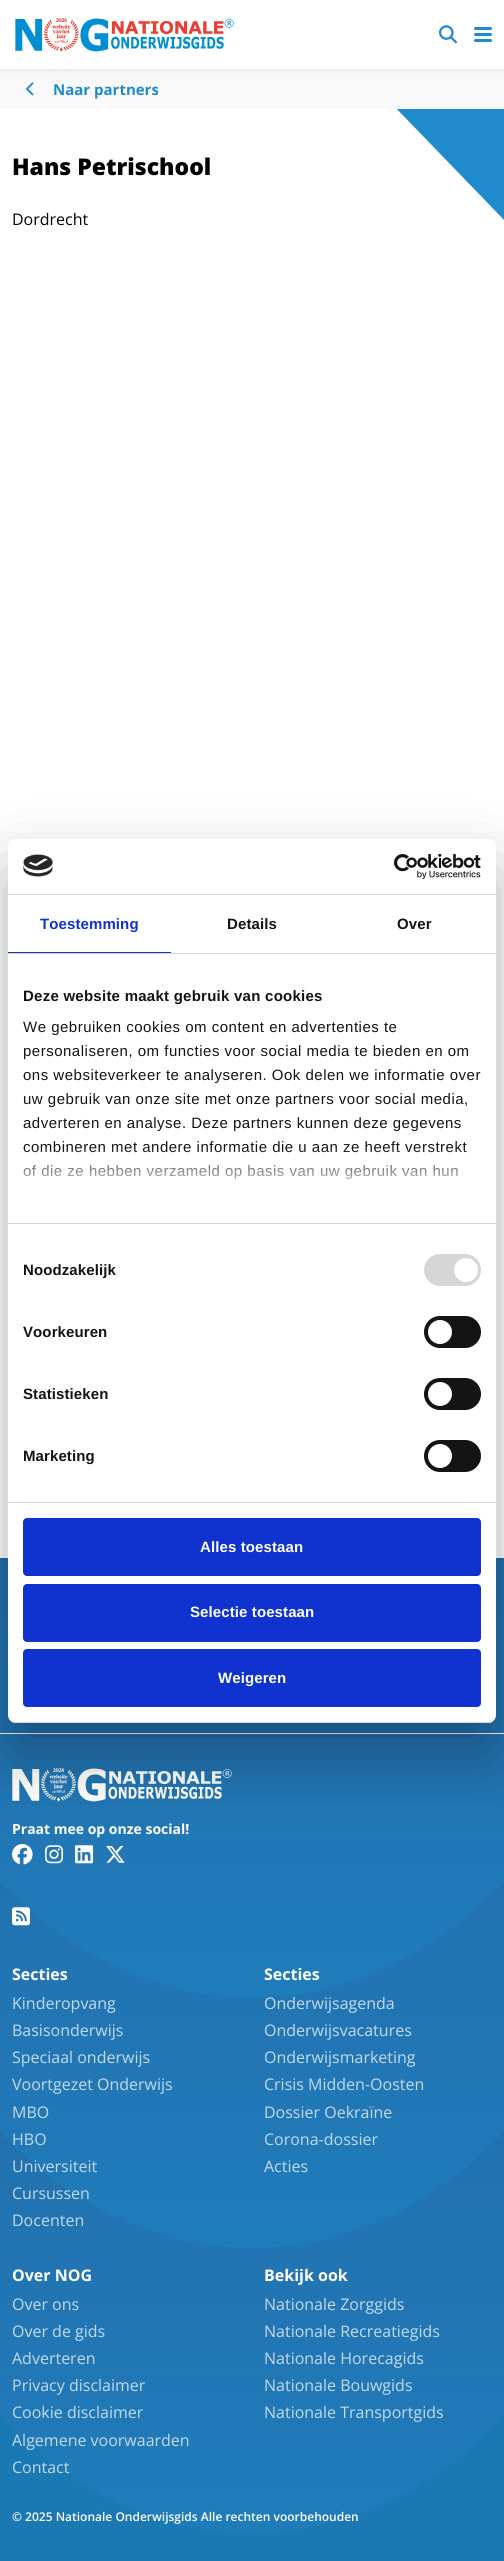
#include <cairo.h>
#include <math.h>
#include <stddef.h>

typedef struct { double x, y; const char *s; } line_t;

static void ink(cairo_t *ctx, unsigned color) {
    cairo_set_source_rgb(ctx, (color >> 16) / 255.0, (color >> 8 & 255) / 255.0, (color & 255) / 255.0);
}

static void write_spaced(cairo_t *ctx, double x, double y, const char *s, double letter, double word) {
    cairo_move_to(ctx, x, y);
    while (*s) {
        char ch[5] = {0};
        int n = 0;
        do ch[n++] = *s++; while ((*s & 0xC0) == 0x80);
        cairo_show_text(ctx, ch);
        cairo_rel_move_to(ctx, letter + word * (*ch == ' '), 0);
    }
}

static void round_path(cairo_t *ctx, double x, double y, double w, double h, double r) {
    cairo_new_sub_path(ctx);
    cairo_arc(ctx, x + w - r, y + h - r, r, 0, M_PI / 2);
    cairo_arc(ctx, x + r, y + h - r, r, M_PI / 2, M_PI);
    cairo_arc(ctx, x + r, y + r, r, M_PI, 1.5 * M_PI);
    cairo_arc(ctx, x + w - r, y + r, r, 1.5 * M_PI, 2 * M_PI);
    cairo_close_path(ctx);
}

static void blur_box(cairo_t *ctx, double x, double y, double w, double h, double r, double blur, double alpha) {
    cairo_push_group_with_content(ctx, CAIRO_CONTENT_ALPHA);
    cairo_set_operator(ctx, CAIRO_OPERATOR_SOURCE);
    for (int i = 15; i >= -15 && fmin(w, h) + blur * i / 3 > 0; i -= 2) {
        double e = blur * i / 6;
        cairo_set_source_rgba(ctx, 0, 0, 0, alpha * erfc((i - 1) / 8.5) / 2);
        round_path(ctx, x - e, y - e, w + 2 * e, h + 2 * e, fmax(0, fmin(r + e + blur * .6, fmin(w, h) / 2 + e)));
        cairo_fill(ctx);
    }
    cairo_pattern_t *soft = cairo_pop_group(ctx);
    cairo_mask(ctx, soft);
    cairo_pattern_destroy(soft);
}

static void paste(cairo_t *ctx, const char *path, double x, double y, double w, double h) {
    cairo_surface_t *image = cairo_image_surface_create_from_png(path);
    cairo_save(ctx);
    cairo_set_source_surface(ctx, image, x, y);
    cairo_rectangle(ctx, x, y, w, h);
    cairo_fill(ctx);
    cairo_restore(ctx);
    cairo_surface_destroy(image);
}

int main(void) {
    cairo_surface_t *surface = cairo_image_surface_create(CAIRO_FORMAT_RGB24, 504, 2561);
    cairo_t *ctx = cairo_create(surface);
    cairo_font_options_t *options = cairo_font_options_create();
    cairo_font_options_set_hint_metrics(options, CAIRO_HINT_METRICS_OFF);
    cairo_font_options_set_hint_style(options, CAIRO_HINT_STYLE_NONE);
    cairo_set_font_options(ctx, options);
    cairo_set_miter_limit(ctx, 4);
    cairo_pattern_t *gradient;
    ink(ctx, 0xFFFFFF);
    cairo_paint(ctx);
    ink(ctx, 0x208BCC);
    cairo_set_fill_rule(ctx, CAIRO_FILL_RULE_EVEN_ODD);
    cairo_new_path(ctx);
    cairo_move_to(ctx, 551, -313);
    cairo_line_to(ctx, 277, -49);
    cairo_curve_to(ctx, 268, -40, 267, -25, 276, -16);
    cairo_line_to(ctx, 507, 223);
    cairo_curve_to(ctx, 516, 232, 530, 232, 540, 223);
    cairo_line_to(ctx, 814, -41);
    cairo_curve_to(ctx, 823, -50, 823, -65, 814, -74);
    cairo_line_to(ctx, 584, -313);
    cairo_curve_to(ctx, 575, -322, 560, -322, 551, -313);
    cairo_close_path(ctx);
    cairo_fill(ctx);
    ink(ctx, 0xF9F9F9);
    cairo_rectangle(ctx, 0, 69, 504, 40);
    cairo_fill(ctx);
    ink(ctx, 0x3D3D3D);
    blur_box(ctx, 0, 0, 504, 69, 0, 3.5, 0.2);
    ink(ctx, 0xFFFFFF);
    cairo_rectangle(ctx, 0, 0, 504, 69);
    cairo_fill(ctx);
    paste(ctx, "media/1.png", 15, 18, 219, 34);
    paste(ctx, "media/2.png", 439, 25, 18, 19);
    ink(ctx, 0x208BCC);
    round_path(ctx, 474, 27, 18, 3, 1.5);
    cairo_fill(ctx);
    round_path(ctx, 474, 33, 18, 3, 1.5);
    cairo_fill(ctx);
    round_path(ctx, 474, 39, 18, 3, 1.5);
    cairo_fill(ctx);
    paste(ctx, "media/3.png", 26, 82, 8, 14);
    cairo_select_font_face(ctx, "Open Sans", CAIRO_FONT_SLANT_NORMAL, CAIRO_FONT_WEIGHT_BOLD);
    cairo_set_font_size(ctx, 15);
    cairo_move_to(ctx, 53, 95);
    cairo_show_text(ctx, "Naar partners");
    cairo_select_font_face(ctx, "Open Sans ExtraBold", CAIRO_FONT_SLANT_NORMAL, CAIRO_FONT_WEIGHT_NORMAL);
    cairo_set_font_size(ctx, 23);
    ink(ctx, 0x000000);
    cairo_move_to(ctx, 12, 175);
    cairo_show_text(ctx, "Hans Petrischool");
    cairo_select_font_face(ctx, "Open Sans", CAIRO_FONT_SLANT_NORMAL, CAIRO_FONT_WEIGHT_NORMAL);
    cairo_set_font_size(ctx, 16);
    cairo_move_to(ctx, 12, 225);
    cairo_show_text(ctx, "Dordrecht");
    ink(ctx, 0x1A79B3);
    cairo_rectangle(ctx, 0, 2416, 504, 145);
    cairo_fill(ctx);
    cairo_save(ctx);
    cairo_set_fill_rule(ctx, CAIRO_FILL_RULE_WINDING);
    cairo_rectangle(ctx, 0, 1558, 504, 1003);
    cairo_clip(ctx);
    ink(ctx, 0x1C80BD);
    cairo_new_path(ctx);
    cairo_move_to(ctx, 252, 1413);
    cairo_curve_to(ctx, 480, 1413, 664.5, 1663.5, 664.5, 1973);
    cairo_curve_to(ctx, 664.5, 2282.5, 480, 2533, 252, 2533);
    cairo_curve_to(ctx, 24, 2533, -160.5, 2282.5, -160.5, 1973);
    cairo_curve_to(ctx, -160.5, 1663.5, 24, 1413, 252, 1413);
    cairo_close_path(ctx);
    cairo_fill(ctx);
    gradient = cairo_pattern_create_linear(252, 2533, 252, 1413);
    cairo_pattern_add_color_stop_rgba(gradient, 0, 0.212, 0.369, 0.635, 0.1);
    cairo_pattern_add_color_stop_rgba(gradient, 0.67, 0.082, 0.435, 0.655, 1);
    cairo_set_source(ctx, gradient);
    cairo_pattern_destroy(gradient);
    cairo_new_path(ctx);
    cairo_move_to(ctx, 252, 1413);
    cairo_curve_to(ctx, 480, 1413, 664.5, 1663.5, 664.5, 1973);
    cairo_curve_to(ctx, 664.5, 2282.5, 480, 2533, 252, 2533);
    cairo_curve_to(ctx, 24, 2533, -160.5, 2282.5, -160.5, 1973);
    cairo_curve_to(ctx, -160.5, 1663.5, 24, 1413, 252, 1413);
    cairo_close_path(ctx);
    cairo_fill(ctx);
    ink(ctx, 0x1C80BD);
    cairo_new_path(ctx);
    cairo_move_to(ctx, 252, 1128);
    cairo_curve_to(ctx, 480, 1128, 664.5, 1378.5, 664.5, 1688);
    cairo_curve_to(ctx, 664.5, 1997.5, 480, 2248, 252, 2248);
    cairo_curve_to(ctx, 24, 2248, -160.5, 1997.5, -160.5, 1688);
    cairo_curve_to(ctx, -160.5, 1378.5, 24, 1128, 252, 1128);
    cairo_close_path(ctx);
    cairo_fill(ctx);
    gradient = cairo_pattern_create_linear(252, 2248, 252, 1128);
    cairo_pattern_add_color_stop_rgba(gradient, 0, 0.212, 0.369, 0.639, 0.1);
    cairo_pattern_add_color_stop_rgba(gradient, 0.67, 0.082, 0.435, 0.655, 1);
    cairo_set_source(ctx, gradient);
    cairo_pattern_destroy(gradient);
    cairo_new_path(ctx);
    cairo_move_to(ctx, 252, 1128);
    cairo_curve_to(ctx, 480, 1128, 664.5, 1378.5, 664.5, 1688);
    cairo_curve_to(ctx, 664.5, 1997.5, 480, 2248, 252, 2248);
    cairo_curve_to(ctx, 24, 2248, -160.5, 1997.5, -160.5, 1688);
    cairo_curve_to(ctx, -160.5, 1378.5, 24, 1128, 252, 1128);
    cairo_close_path(ctx);
    cairo_fill(ctx);
    ink(ctx, 0x1C80BD);
    cairo_new_path(ctx);
    cairo_move_to(ctx, 252, 878);
    cairo_curve_to(ctx, 480, 878, 664.5, 1128.5, 664.5, 1438);
    cairo_curve_to(ctx, 664.5, 1747.5, 480, 1998, 252, 1998);
    cairo_curve_to(ctx, 24, 1998, -160.5, 1747.5, -160.5, 1438);
    cairo_curve_to(ctx, -160.5, 1128.5, 24, 878, 252, 878);
    cairo_close_path(ctx);
    cairo_fill(ctx);
    gradient = cairo_pattern_create_linear(252, 1998, 252, 878);
    cairo_pattern_add_color_stop_rgba(gradient, 0, 0.212, 0.369, 0.639, 0.1);
    cairo_pattern_add_color_stop_rgba(gradient, 0.67, 0.082, 0.435, 0.655, 1);
    cairo_set_source(ctx, gradient);
    cairo_pattern_destroy(gradient);
    cairo_new_path(ctx);
    cairo_move_to(ctx, 252, 878);
    cairo_curve_to(ctx, 480, 878, 664.5, 1128.5, 664.5, 1438);
    cairo_curve_to(ctx, 664.5, 1747.5, 480, 1998, 252, 1998);
    cairo_curve_to(ctx, 24, 1998, -160.5, 1747.5, -160.5, 1438);
    cairo_curve_to(ctx, -160.5, 1128.5, 24, 878, 252, 878);
    cairo_close_path(ctx);
    cairo_fill(ctx);
    cairo_restore(ctx);
    ink(ctx, 0xFFFFFF);
    cairo_rectangle(ctx, 0, 1733, 504, 1);
    cairo_fill(ctx);
    paste(ctx, "media/6.png", 12, 1768, 220, 34);
    paste(ctx, "media/7.png", 12, 1844, 21, 21);
    paste(ctx, "media/8.png", 45, 1845, 19, 19);
    paste(ctx, "media/9.png", 75, 1845, 19, 19);
    paste(ctx, "media/10.png", 106, 1845, 19, 18);
    ink(ctx, 0x000000);
    blur_box(ctx, 8, 871, 488, 884, 8, 34, 0.3);
    ink(ctx, 0xFFFFFF);
    round_path(ctx, 8, 839, 488, 884, 8);
    cairo_fill(ctx);
    ink(ctx, 0xD6D6D6);
    cairo_rectangle(ctx, 8, 894, 488, 1);
    cairo_fill(ctx);
    paste(ctx, "media/4.png", 23, 854, 30, 23);
    paste(ctx, "media/5.png", 394, 854, 87, 25);
    cairo_rectangle(ctx, 8, 953, 488, 1);
    cairo_fill(ctx);
    ink(ctx, 0x1032CF);
    cairo_rectangle(ctx, 8, 952, 163, 1);
    cairo_fill(ctx);
    cairo_select_font_face(ctx, "Liberation Sans", CAIRO_FONT_SLANT_NORMAL, CAIRO_FONT_WEIGHT_BOLD);
    cairo_set_font_size(ctx, 15);
    write_spaced(ctx, 40, 929, "Toestemming", 0.1, 0);
    ink(ctx, 0x141414);
    write_spaced(ctx, 227, 929, "Details", 0.1, 0);
    write_spaced(ctx, 397, 929, "Over", 0.1, 0);
    ink(ctx, 0xD6D6D6);
    cairo_rectangle(ctx, 8, 1223, 488, 1);
    cairo_fill(ctx);
    ink(ctx, 0x141414);
    write_spaced(ctx, 23, 1001, "Deze website maakt gebruik van cookies", 0.25, 0);
    cairo_select_font_face(ctx, "Liberation Sans", CAIRO_FONT_SLANT_NORMAL, CAIRO_FONT_WEIGHT_NORMAL);
    {
        static const line_t items[] = {
            {23, 1032, "We gebruiken cookies om content en advertenties te"},
            {23, 1056, "personaliseren, om functies voor social media te bieden en om"},
            {23, 1080, "ons websiteverkeer te analyseren. Ook delen we informatie over"},
            {23, 1104, "uw gebruik van onze site met onze partners voor social media,"},
            {23, 1128, "adverteren en analyse. Deze partners kunnen deze gegevens"},
            {23, 1152, "combineren met andere informatie die u aan ze heeft verstrekt"},
            {23, 1176, "of die ze hebben verzameld op basis van uw gebruik van hun"},
        };
        for (size_t i = 0; i < sizeof items / sizeof *items; i++) {
            write_spaced(ctx, items[i].x, items[i].y, items[i].s, 0.5, 0);
        }
    }
    gradient = cairo_pattern_create_linear(246, 1223, 246, 1148);
    cairo_pattern_add_color_stop_rgba(gradient, 0, 1, 1, 1, 1);
    cairo_pattern_add_color_stop_rgba(gradient, 0.5, 1, 1, 1, 0.8);
    cairo_pattern_add_color_stop_rgba(gradient, 1, 1, 1, 1, 0);
    cairo_set_source(ctx, gradient);
    cairo_pattern_destroy(gradient);
    cairo_rectangle(ctx, 23, 1149, 444, 31);
    cairo_fill(ctx);
    ink(ctx, 0xD6D6D6);
    cairo_rectangle(ctx, 8, 1502, 488, 1);
    cairo_fill(ctx);
    cairo_select_font_face(ctx, "Liberation Sans", CAIRO_FONT_SLANT_NORMAL, CAIRO_FONT_WEIGHT_BOLD);
    ink(ctx, 0x141414);
    write_spaced(ctx, 23, 1275, "Noodzakelijk", 0.1, 0);
    ink(ctx, 0xD6D6D6);
    round_path(ctx, 424, 1254, 57, 32, 16);
    cairo_fill(ctx);
    ink(ctx, 0xFFFFFF);
    cairo_arc(ctx, 466, 1270, 12, 0, 2 * M_PI);
    cairo_fill(ctx);
    ink(ctx, 0x141414);
    write_spaced(ctx, 23, 1337, "Voorkeuren", 0.1, 0);
    round_path(ctx, 424, 1316, 57, 32, 16);
    cairo_fill(ctx);
    ink(ctx, 0xFFFFFF);
    cairo_arc(ctx, 440, 1332, 12, 0, 2 * M_PI);
    cairo_fill(ctx);
    ink(ctx, 0x141414);
    write_spaced(ctx, 23, 1399, "Statistieken", 0.1, 0);
    round_path(ctx, 424, 1378, 57, 32, 16);
    cairo_fill(ctx);
    ink(ctx, 0xFFFFFF);
    cairo_arc(ctx, 440, 1394, 12, 0, 2 * M_PI);
    cairo_fill(ctx);
    ink(ctx, 0x141414);
    write_spaced(ctx, 23, 1461, "Marketing", 0.1, 0);
    round_path(ctx, 424, 1440, 57, 32, 16);
    cairo_fill(ctx);
    ink(ctx, 0xFFFFFF);
    cairo_arc(ctx, 440, 1456, 12, 0, 2 * M_PI);
    cairo_fill(ctx);
    cairo_save(ctx);
    cairo_set_fill_rule(ctx, CAIRO_FILL_RULE_WINDING);
    round_path(ctx, 8, 839, 488, 884, 8);
    cairo_clip(ctx);
    ink(ctx, 0xD6D6D6);
    cairo_rectangle(ctx, 8, 1722, 488, 1);
    cairo_fill(ctx);
    cairo_restore(ctx);
    ink(ctx, 0x1032CF);
    round_path(ctx, 24, 1519, 456, 56, 3);
    cairo_fill_preserve(ctx);
    cairo_stroke(ctx);
    ink(ctx, 0xFFFFFF);
    write_spaced(ctx, 200, 1552, "Alles toestaan", 0.1, 0);
    ink(ctx, 0x1032CF);
    round_path(ctx, 24, 1585, 456, 56, 3);
    cairo_fill_preserve(ctx);
    cairo_stroke(ctx);
    ink(ctx, 0xFFFFFF);
    write_spaced(ctx, 190, 1617, "Selectie toestaan", 0.1, 0);
    ink(ctx, 0x1032CF);
    round_path(ctx, 24, 1650, 456, 56, 3);
    cairo_fill_preserve(ctx);
    cairo_stroke(ctx);
    ink(ctx, 0xFFFFFF);
    write_spaced(ctx, 218, 1683, "Weigeren", 0.1, 0);
    cairo_select_font_face(ctx, "Open Sans", CAIRO_FONT_SLANT_NORMAL, CAIRO_FONT_WEIGHT_BOLD);
    cairo_set_font_size(ctx, 14);
    cairo_move_to(ctx, 12, 1834);
    cairo_show_text(ctx, "Praat mee op onze social!");
    paste(ctx, "media/11.png", 12, 1907, 19, 19);
    cairo_set_font_size(ctx, 16);
    cairo_move_to(ctx, 12, 1980);
    cairo_show_text(ctx, "Secties");
    cairo_select_font_face(ctx, "Open Sans", CAIRO_FONT_SLANT_NORMAL, CAIRO_FONT_WEIGHT_NORMAL);
    ink(ctx, 0xC3DAEB);
    {
        static const line_t items[] = {
            {12, 2009, "Kinderopvang"},
            {12, 2036, "Basisonderwijs"},
            {12, 2063, "Speciaal onderwijs"},
            {12, 2090, "Voortgezet Onderwijs"},
            {12, 2118, "MBO"},
            {12, 2145, "HBO"},
            {12, 2172, "Universiteit"},
            {12, 2199, "Cursussen"},
            {12, 2226, "Docenten"},
        };
        for (size_t i = 0; i < sizeof items / sizeof *items; i++) {
            cairo_move_to(ctx, items[i].x, items[i].y);
            cairo_show_text(ctx, items[i].s);
        }
    }
    cairo_select_font_face(ctx, "Open Sans", CAIRO_FONT_SLANT_NORMAL, CAIRO_FONT_WEIGHT_BOLD);
    ink(ctx, 0xFFFFFF);
    cairo_move_to(ctx, 264, 1980);
    cairo_show_text(ctx, "Secties");
    cairo_select_font_face(ctx, "Open Sans", CAIRO_FONT_SLANT_NORMAL, CAIRO_FONT_WEIGHT_NORMAL);
    ink(ctx, 0xC3DAEB);
    {
        static const line_t items[] = {
            {264, 2009, "Onderwijsagenda"},
            {264, 2036, "Onderwijsvacatures"},
            {264, 2063, "Onderwijsmarketing"},
            {264, 2090, "Crisis Midden-Oosten"},
            {264, 2118, "Dossier Oekraïne"},
            {264, 2145, "Corona-dossier"},
            {264, 2172, "Acties"},
        };
        for (size_t i = 0; i < sizeof items / sizeof *items; i++) {
            cairo_move_to(ctx, items[i].x, items[i].y);
            cairo_show_text(ctx, items[i].s);
        }
    }
    cairo_select_font_face(ctx, "Open Sans", CAIRO_FONT_SLANT_NORMAL, CAIRO_FONT_WEIGHT_BOLD);
    ink(ctx, 0xFFFFFF);
    cairo_move_to(ctx, 12, 2281);
    cairo_show_text(ctx, "Over NOG");
    cairo_select_font_face(ctx, "Open Sans", CAIRO_FONT_SLANT_NORMAL, CAIRO_FONT_WEIGHT_NORMAL);
    ink(ctx, 0xC3DAEB);
    {
        static const line_t items[] = {
            {12, 2310, "Over ons"},
            {12, 2337, "Over de gids"},
            {12, 2364, "Adverteren"},
            {12, 2391, "Privacy disclaimer"},
            {12, 2418, "Cookie disclaimer"},
            {12, 2446, "Algemene voorwaarden"},
            {12, 2473, "Contact"},
        };
        for (size_t i = 0; i < sizeof items / sizeof *items; i++) {
            cairo_move_to(ctx, items[i].x, items[i].y);
            cairo_show_text(ctx, items[i].s);
        }
    }
    cairo_select_font_face(ctx, "Open Sans", CAIRO_FONT_SLANT_NORMAL, CAIRO_FONT_WEIGHT_BOLD);
    ink(ctx, 0xFFFFFF);
    cairo_move_to(ctx, 264, 2281);
    cairo_show_text(ctx, "Bekijk ook");
    cairo_select_font_face(ctx, "Open Sans", CAIRO_FONT_SLANT_NORMAL, CAIRO_FONT_WEIGHT_NORMAL);
    ink(ctx, 0xC3DAEB);
    {
        static const line_t items[] = {
            {264, 2310, "Nationale Zorggids"},
            {264, 2337, "Nationale Recreatiegids"},
            {264, 2364, "Nationale Horecagids"},
            {264, 2391, "Nationale Bouwgids"},
            {264, 2418, "Nationale Transportgids"},
        };
        for (size_t i = 0; i < sizeof items / sizeof *items; i++) {
            cairo_move_to(ctx, items[i].x, items[i].y);
            cairo_show_text(ctx, items[i].s);
        }
    }
    cairo_select_font_face(ctx, "Open Sans SemiBold", CAIRO_FONT_SLANT_NORMAL, CAIRO_FONT_WEIGHT_NORMAL);
    cairo_set_font_size(ctx, 12);
    ink(ctx, 0xFFFFFF);
    cairo_move_to(ctx, 12, 2521);
    cairo_show_text(ctx, "© 2025 Nationale Onderwijsgids Alle rechten voorbehouden");
    cairo_surface_write_to_png(surface, "image.png");
    cairo_font_options_destroy(options);
    cairo_destroy(ctx);
    cairo_surface_destroy(surface);
    return 0;
}
